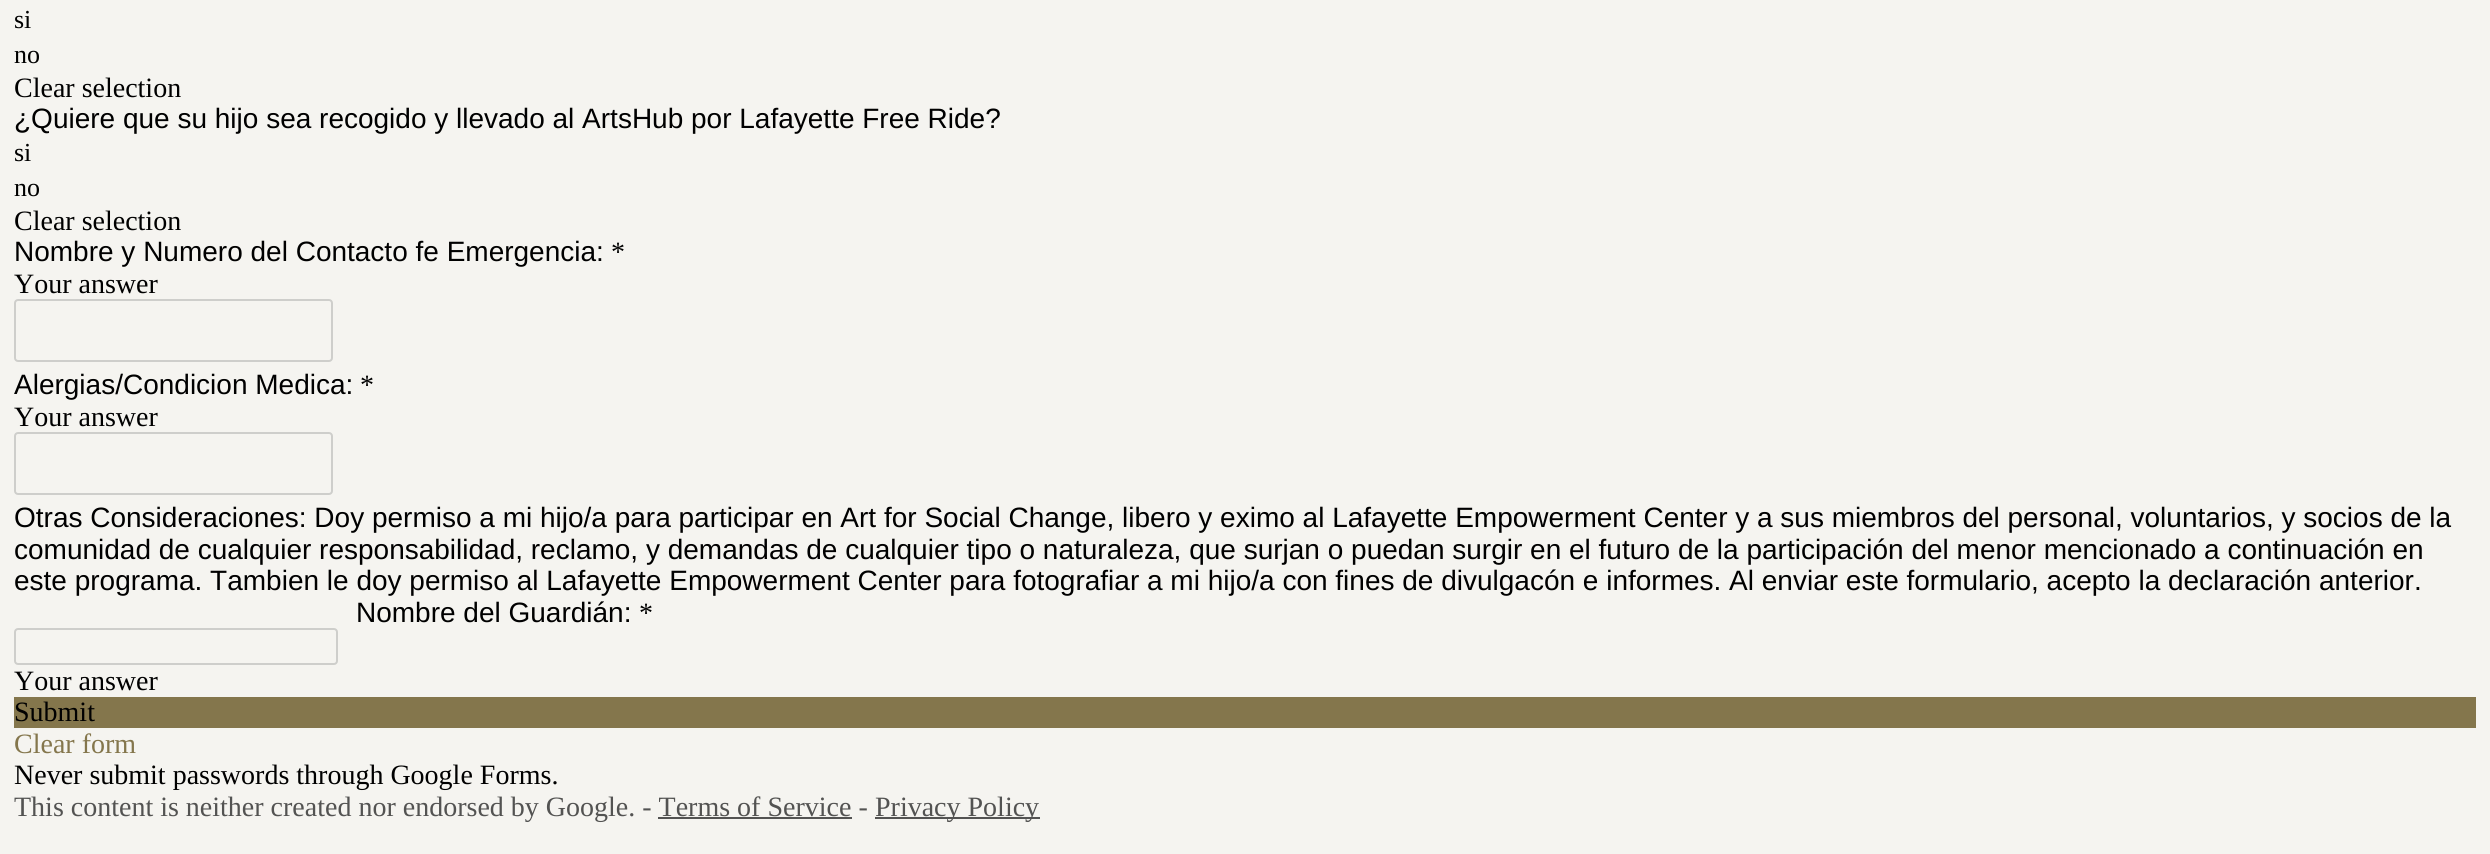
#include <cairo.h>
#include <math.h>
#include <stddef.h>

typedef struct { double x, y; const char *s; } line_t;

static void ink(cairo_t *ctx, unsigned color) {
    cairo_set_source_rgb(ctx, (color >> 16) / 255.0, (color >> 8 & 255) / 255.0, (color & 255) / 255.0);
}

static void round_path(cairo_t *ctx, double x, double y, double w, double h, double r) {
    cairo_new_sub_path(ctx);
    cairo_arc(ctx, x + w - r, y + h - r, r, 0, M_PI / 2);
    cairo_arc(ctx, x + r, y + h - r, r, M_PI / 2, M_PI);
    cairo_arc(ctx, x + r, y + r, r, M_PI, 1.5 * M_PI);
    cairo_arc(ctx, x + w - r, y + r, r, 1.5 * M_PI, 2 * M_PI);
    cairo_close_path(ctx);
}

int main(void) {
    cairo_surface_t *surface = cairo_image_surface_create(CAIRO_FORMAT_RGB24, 2490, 854);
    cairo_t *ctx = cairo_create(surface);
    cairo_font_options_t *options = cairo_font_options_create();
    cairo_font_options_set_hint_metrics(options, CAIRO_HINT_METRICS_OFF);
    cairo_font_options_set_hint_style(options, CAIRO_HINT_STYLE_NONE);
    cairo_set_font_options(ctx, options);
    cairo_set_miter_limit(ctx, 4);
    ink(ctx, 0xF5F4F0);
    cairo_paint(ctx);
    cairo_select_font_face(ctx, "Liberation Serif", CAIRO_FONT_SLANT_NORMAL, CAIRO_FONT_WEIGHT_NORMAL);
    cairo_set_font_size(ctx, 26);
    ink(ctx, 0x000000);
    cairo_move_to(ctx, 14, 28);
    cairo_show_text(ctx, "si");
    cairo_move_to(ctx, 14, 63);
    cairo_show_text(ctx, "no");
    cairo_set_font_size(ctx, 28);
    cairo_move_to(ctx, 14, 97);
    cairo_show_text(ctx, "Clear selection");
    cairo_select_font_face(ctx, "Liberation Sans", CAIRO_FONT_SLANT_NORMAL, CAIRO_FONT_WEIGHT_NORMAL);
    cairo_move_to(ctx, 14, 128);
    cairo_show_text(ctx, "¿Quiere que su hijo sea recogido y llevado al ArtsHub por Lafayette Free Ride?");
    cairo_select_font_face(ctx, "Liberation Serif", CAIRO_FONT_SLANT_NORMAL, CAIRO_FONT_WEIGHT_NORMAL);
    cairo_set_font_size(ctx, 26);
    cairo_move_to(ctx, 14, 161);
    cairo_show_text(ctx, "si");
    cairo_move_to(ctx, 14, 196);
    cairo_show_text(ctx, "no");
    cairo_set_font_size(ctx, 28);
    cairo_move_to(ctx, 14, 230);
    cairo_show_text(ctx, "Clear selection");
    cairo_select_font_face(ctx, "Liberation Sans", CAIRO_FONT_SLANT_NORMAL, CAIRO_FONT_WEIGHT_NORMAL);
    cairo_move_to(ctx, 14, 261);
    cairo_show_text(ctx, "Nombre y Numero del Contacto fe Emergencia:");
    cairo_select_font_face(ctx, "Liberation Serif", CAIRO_FONT_SLANT_NORMAL, CAIRO_FONT_WEIGHT_NORMAL);
    cairo_move_to(ctx, 611, 261);
    cairo_show_text(ctx, "*");
    cairo_move_to(ctx, 14, 293);
    cairo_show_text(ctx, "Your answer");
    round_path(ctx, 15, 300, 317, 61, 3);
    ink(ctx, 0xCECECB);
    cairo_stroke(ctx);
    cairo_select_font_face(ctx, "Liberation Sans", CAIRO_FONT_SLANT_NORMAL, CAIRO_FONT_WEIGHT_NORMAL);
    ink(ctx, 0x000000);
    cairo_move_to(ctx, 14, 394);
    cairo_show_text(ctx, "Alergias/Condicion Medica:");
    cairo_select_font_face(ctx, "Liberation Serif", CAIRO_FONT_SLANT_NORMAL, CAIRO_FONT_WEIGHT_NORMAL);
    cairo_move_to(ctx, 360, 394);
    cairo_show_text(ctx, "*");
    cairo_move_to(ctx, 14, 426);
    cairo_show_text(ctx, "Your answer");
    round_path(ctx, 15, 433, 317, 61, 3);
    ink(ctx, 0xCECECB);
    cairo_stroke(ctx);
    cairo_select_font_face(ctx, "Liberation Sans", CAIRO_FONT_SLANT_NORMAL, CAIRO_FONT_WEIGHT_NORMAL);
    ink(ctx, 0x000000);
    {
        static const line_t items[] = {
            {14, 527, "Otras Consideraciones: Doy permiso a mi hijo/a para participar en Art for Social Change, libero y eximo al Lafayette Empowerment Center y a sus miembros del personal, voluntarios, y socios de la"},
            {14, 559, "comunidad de cualquier responsabilidad, reclamo, y demandas de cualquier tipo o naturaleza, que surjan o puedan surgir en el futuro de la participación del menor mencionado a continuación en"},
            {14, 590, "este programa. Tambien le doy permiso al Lafayette Empowerment Center para fotografiar a mi hijo/a con fines de divulgacón e informes. Al enviar este formulario, acepto la declaración anterior."},
            {356, 622, "Nombre del Guardián:"},
        };
        for (size_t i = 0; i < sizeof items / sizeof *items; i++) {
            cairo_move_to(ctx, items[i].x, items[i].y);
            cairo_show_text(ctx, items[i].s);
        }
    }
    cairo_select_font_face(ctx, "Liberation Serif", CAIRO_FONT_SLANT_NORMAL, CAIRO_FONT_WEIGHT_NORMAL);
    cairo_move_to(ctx, 639, 622);
    cairo_show_text(ctx, "*");
    round_path(ctx, 15, 629, 322, 35, 3);
    ink(ctx, 0xCECECB);
    cairo_stroke(ctx);
    ink(ctx, 0x000000);
    cairo_move_to(ctx, 14, 690);
    cairo_show_text(ctx, "Your answer");
    ink(ctx, 0x84764C);
    cairo_rectangle(ctx, 14, 697, 2462, 31);
    cairo_fill(ctx);
    ink(ctx, 0x000000);
    cairo_move_to(ctx, 14, 721);
    cairo_show_text(ctx, "Submit");
    ink(ctx, 0x84764C);
    cairo_move_to(ctx, 14, 753);
    cairo_show_text(ctx, "Clear form");
    ink(ctx, 0x000000);
    cairo_move_to(ctx, 14, 784);
    cairo_show_text(ctx, "Never submit passwords through Google Forms.");
    ink(ctx, 0x535352);
    cairo_move_to(ctx, 14, 816);
    cairo_show_text(ctx, "This content is neither created nor endorsed by Google. - Terms of Service -");
    cairo_rectangle(ctx, 875, 817, 165, 2);
    cairo_fill(ctx);
    cairo_move_to(ctx, 875, 816);
    cairo_show_text(ctx, "Privacy Policy");
    cairo_rectangle(ctx, 658, 817, 194, 2);
    cairo_fill(ctx);
    cairo_surface_write_to_png(surface, "image.png");
    cairo_font_options_destroy(options);
    cairo_destroy(ctx);
    cairo_surface_destroy(surface);
    return 0;
}
